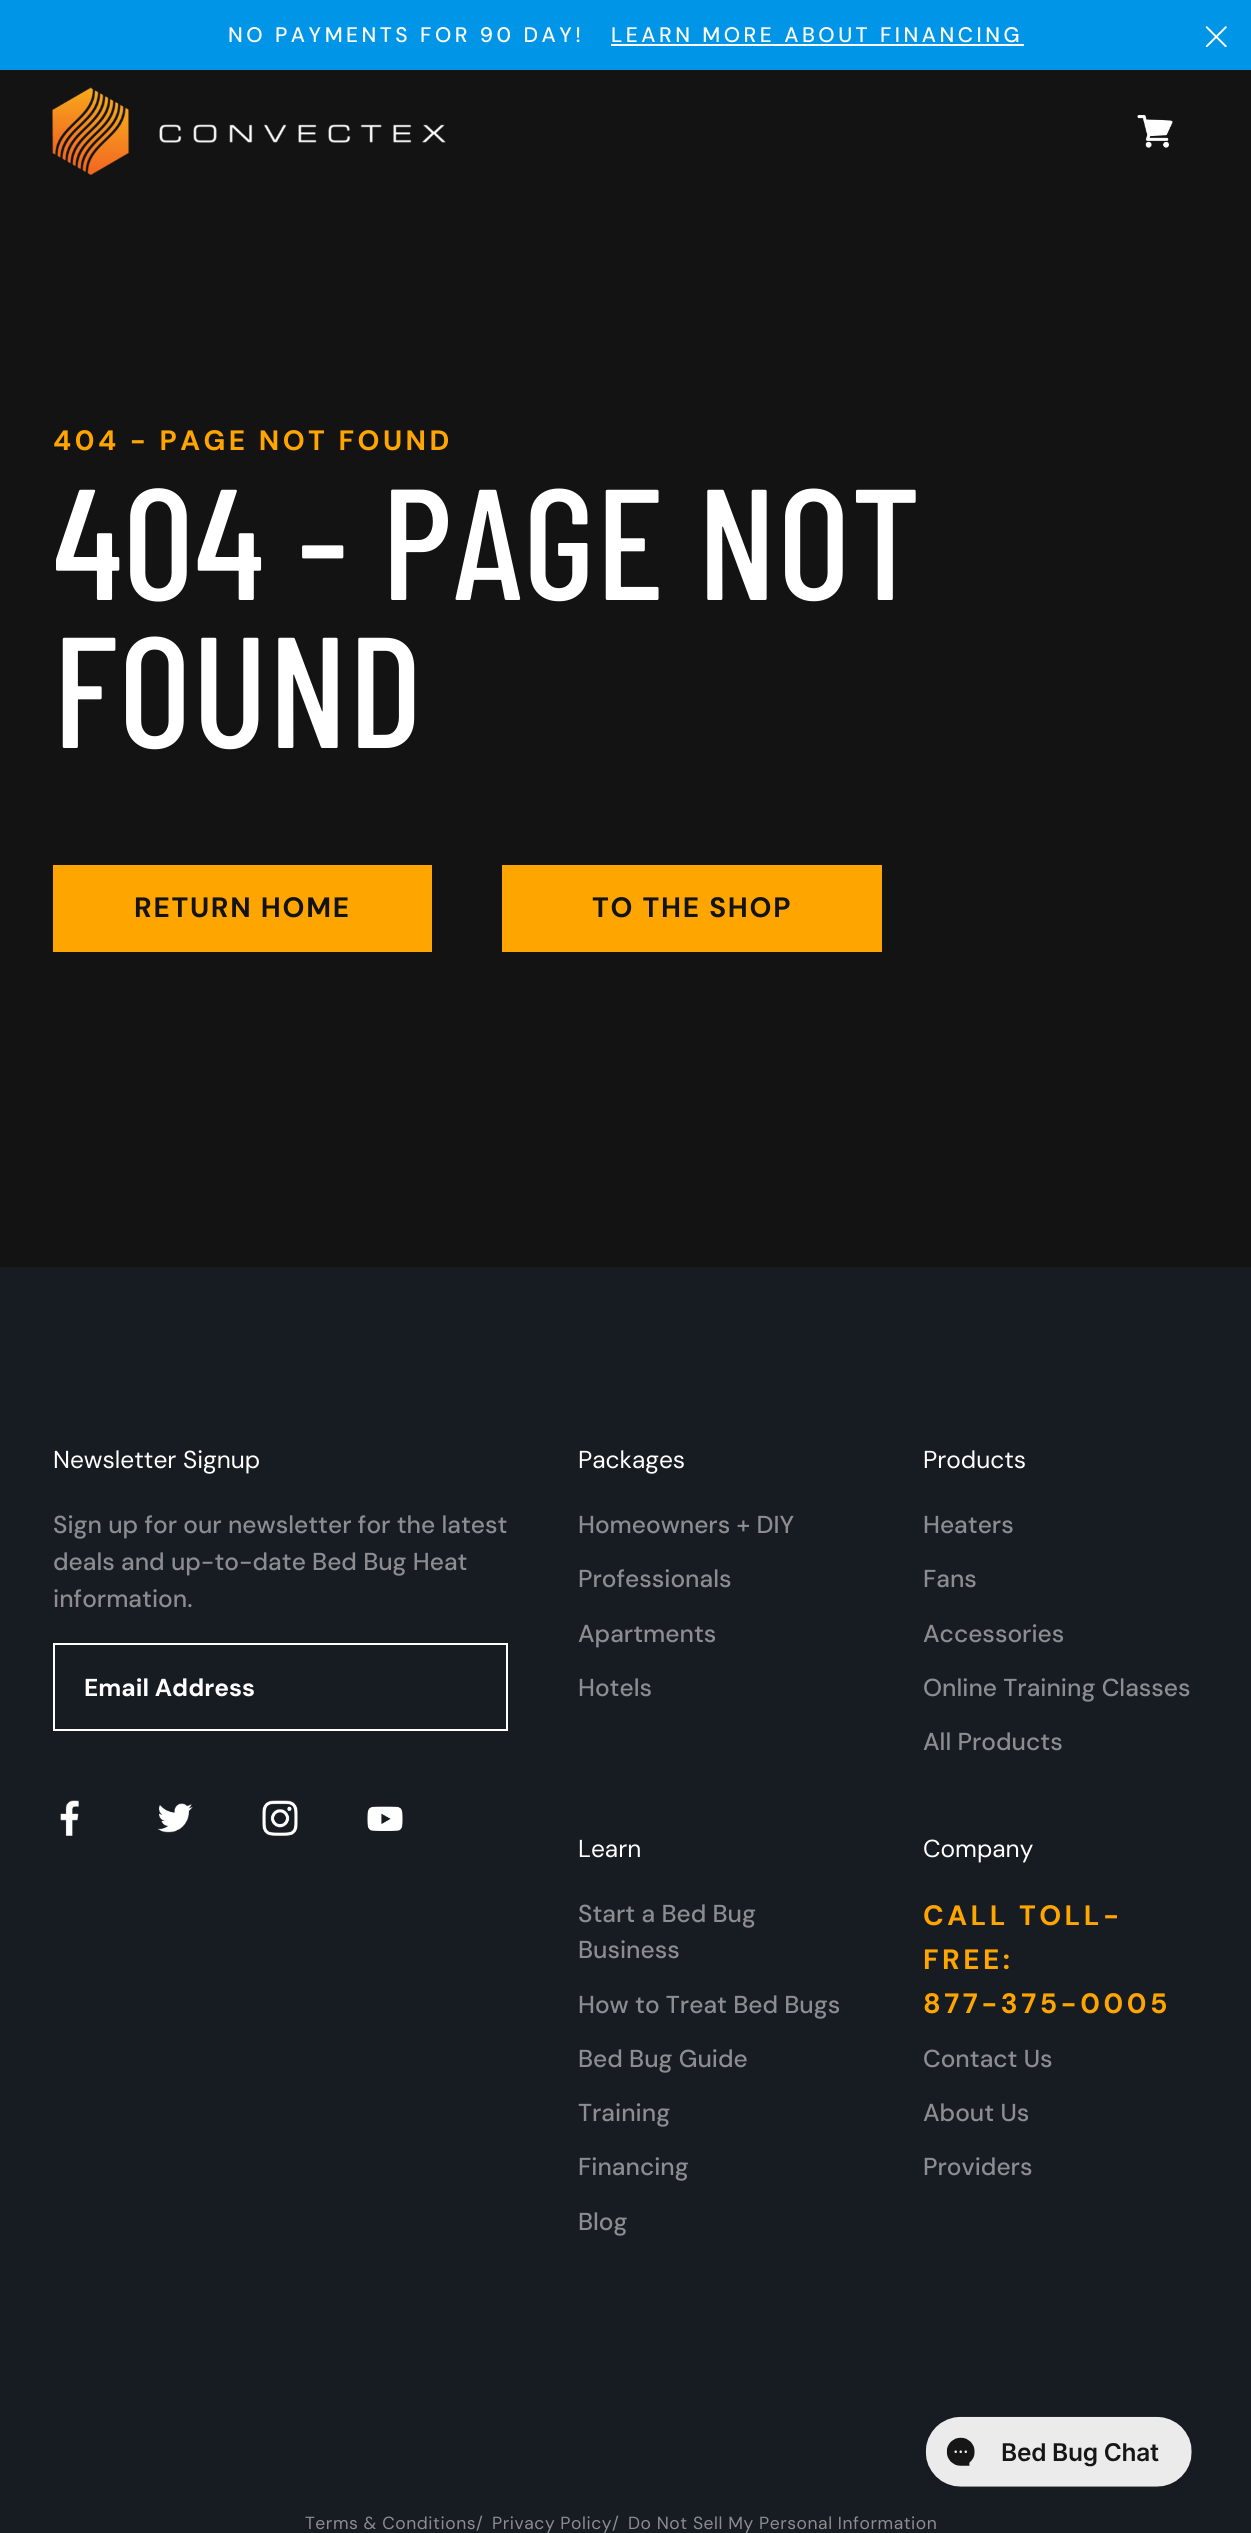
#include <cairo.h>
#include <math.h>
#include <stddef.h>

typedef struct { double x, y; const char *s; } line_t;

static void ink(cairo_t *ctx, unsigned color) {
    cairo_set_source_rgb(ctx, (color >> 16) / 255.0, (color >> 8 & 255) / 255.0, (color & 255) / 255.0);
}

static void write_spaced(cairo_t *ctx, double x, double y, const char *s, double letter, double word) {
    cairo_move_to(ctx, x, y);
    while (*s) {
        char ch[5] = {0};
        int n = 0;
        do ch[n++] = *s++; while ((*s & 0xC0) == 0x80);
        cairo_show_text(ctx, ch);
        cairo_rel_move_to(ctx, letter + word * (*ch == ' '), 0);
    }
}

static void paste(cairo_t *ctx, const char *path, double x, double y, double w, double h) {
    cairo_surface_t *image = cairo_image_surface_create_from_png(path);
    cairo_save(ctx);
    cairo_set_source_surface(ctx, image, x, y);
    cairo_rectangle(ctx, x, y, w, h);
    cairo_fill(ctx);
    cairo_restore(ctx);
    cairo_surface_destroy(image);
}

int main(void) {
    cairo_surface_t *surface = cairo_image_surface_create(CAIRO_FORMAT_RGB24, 1251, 2533);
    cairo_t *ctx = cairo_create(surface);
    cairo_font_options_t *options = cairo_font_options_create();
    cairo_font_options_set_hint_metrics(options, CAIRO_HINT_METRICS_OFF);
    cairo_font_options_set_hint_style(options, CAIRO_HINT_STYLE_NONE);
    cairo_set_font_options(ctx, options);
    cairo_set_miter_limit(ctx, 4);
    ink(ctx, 0x131313);
    cairo_paint(ctx);
    ink(ctx, 0x0195E7);
    cairo_rectangle(ctx, 0, 0, 1251, 70);
    cairo_fill(ctx);
    cairo_select_font_face(ctx, "DM Sans Medium", CAIRO_FONT_SLANT_NORMAL, CAIRO_FONT_WEIGHT_NORMAL);
    cairo_set_font_size(ctx, 21);
    ink(ctx, 0xFFFFFF);
    write_spaced(ctx, 228, 42, "NO PAYMENTS FOR 90 DAY!", 3.5, 0);
    write_spaced(ctx, 611, 42, "LEARN MORE ABOUT FINANCING", 3.5, 0);
    cairo_rectangle(ctx, 611, 44, 413, 2);
    cairo_fill(ctx);
    paste(ctx, "media/1.png", 1205, 26, 22, 21);
    paste(ctx, "media/2.png", 52, 87, 394, 88);
    paste(ctx, "media/3.png", 1137, 115, 36, 33);
    cairo_select_font_face(ctx, "DM Sans", CAIRO_FONT_SLANT_NORMAL, CAIRO_FONT_WEIGHT_BOLD);
    cairo_set_font_size(ctx, 28);
    ink(ctx, 0xFFA500);
    write_spaced(ctx, 53, 450, "404 - PAGE NOT FOUND", 3.5, 0);
    cairo_select_font_face(ctx, "Barlow Condensed Medium", CAIRO_FONT_SLANT_NORMAL, CAIRO_FONT_WEIGHT_NORMAL);
    cairo_set_font_size(ctx, 157.5);
    ink(ctx, 0xFFFFFF);
    write_spaced(ctx, 53, 600, "404 - PAGE NOT", 1, 0);
    write_spaced(ctx, 53, 748, "FOUND", 1, 0);
    ink(ctx, 0xFFA500);
    cairo_rectangle(ctx, 53, 865, 379, 87);
    cairo_fill(ctx);
    cairo_select_font_face(ctx, "DM Sans", CAIRO_FONT_SLANT_NORMAL, CAIRO_FONT_WEIGHT_BOLD);
    cairo_set_font_size(ctx, 28);
    ink(ctx, 0x131313);
    write_spaced(ctx, 134, 917, "RETURN HOME", 1.75, 0);
    ink(ctx, 0xFFA500);
    cairo_rectangle(ctx, 502, 865, 380, 87);
    cairo_fill(ctx);
    ink(ctx, 0x131313);
    write_spaced(ctx, 592, 917, "TO THE SHOP", 1.75, 0);
    ink(ctx, 0x171B22);
    cairo_rectangle(ctx, 0, 1267, 1251, 1266);
    cairo_fill(ctx);
    cairo_select_font_face(ctx, "DM Sans", CAIRO_FONT_SLANT_NORMAL, CAIRO_FONT_WEIGHT_NORMAL);
    cairo_set_font_size(ctx, 24.5);
    ink(ctx, 0xFFFFFF);
    cairo_move_to(ctx, 53, 1468);
    cairo_show_text(ctx, "Newsletter Signup");
    cairo_select_font_face(ctx, "DM Sans Medium", CAIRO_FONT_SLANT_NORMAL, CAIRO_FONT_WEIGHT_NORMAL);
    ink(ctx, 0x8B8D91);
    {
        static const line_t items[] = {
            {53, 1533, "Sign up for our newsletter for the latest"},
            {53, 1570, "deals and up-to-date Bed Bug Heat"},
            {53, 1607, "information."},
        };
        for (size_t i = 0; i < sizeof items / sizeof *items; i++) {
            cairo_move_to(ctx, items[i].x, items[i].y);
            cairo_show_text(ctx, items[i].s);
        }
    }
    cairo_rectangle(ctx, 54, 1644, 453, 86);
    ink(ctx, 0xFFFFFF);
    cairo_stroke(ctx);
    cairo_select_font_face(ctx, "DM Sans", CAIRO_FONT_SLANT_NORMAL, CAIRO_FONT_WEIGHT_BOLD);
    cairo_move_to(ctx, 84, 1696);
    cairo_show_text(ctx, "Email Address");
    paste(ctx, "media/4.png", 60, 1800, 19, 36);
    paste(ctx, "media/5.png", 157, 1803, 36, 30);
    paste(ctx, "media/6.png", 262, 1800, 36, 36);
    paste(ctx, "media/7.png", 367, 1806, 36, 25);
    cairo_select_font_face(ctx, "DM Sans", CAIRO_FONT_SLANT_NORMAL, CAIRO_FONT_WEIGHT_NORMAL);
    cairo_move_to(ctx, 578, 1468);
    cairo_show_text(ctx, "Packages");
    cairo_select_font_face(ctx, "DM Sans Medium", CAIRO_FONT_SLANT_NORMAL, CAIRO_FONT_WEIGHT_NORMAL);
    ink(ctx, 0x8B8D91);
    {
        static const line_t items[] = {
            {578, 1533, "Homeowners + DIY"},
            {578, 1587, "Professionals"},
            {578, 1642, "Apartments"},
            {578, 1696, "Hotels"},
        };
        for (size_t i = 0; i < sizeof items / sizeof *items; i++) {
            cairo_move_to(ctx, items[i].x, items[i].y);
            cairo_show_text(ctx, items[i].s);
        }
    }
    cairo_select_font_face(ctx, "DM Sans", CAIRO_FONT_SLANT_NORMAL, CAIRO_FONT_WEIGHT_NORMAL);
    ink(ctx, 0xFFFFFF);
    cairo_move_to(ctx, 923, 1468);
    cairo_show_text(ctx, "Products");
    cairo_select_font_face(ctx, "DM Sans Medium", CAIRO_FONT_SLANT_NORMAL, CAIRO_FONT_WEIGHT_NORMAL);
    ink(ctx, 0x8B8D91);
    {
        static const line_t items[] = {
            {923, 1533, "Heaters"},
            {923, 1587, "Fans"},
            {923, 1642, "Accessories"},
            {923, 1696, "Online Training Classes"},
            {923, 1750, "All Products"},
        };
        for (size_t i = 0; i < sizeof items / sizeof *items; i++) {
            cairo_move_to(ctx, items[i].x, items[i].y);
            cairo_show_text(ctx, items[i].s);
        }
    }
    cairo_select_font_face(ctx, "DM Sans", CAIRO_FONT_SLANT_NORMAL, CAIRO_FONT_WEIGHT_NORMAL);
    ink(ctx, 0xFFFFFF);
    cairo_move_to(ctx, 578, 1857);
    cairo_show_text(ctx, "Learn");
    cairo_select_font_face(ctx, "DM Sans Medium", CAIRO_FONT_SLANT_NORMAL, CAIRO_FONT_WEIGHT_NORMAL);
    ink(ctx, 0x8B8D91);
    {
        static const line_t items[] = {
            {578, 1922, "Start a Bed Bug"},
            {578, 1958, "Business"},
            {578, 2013, "How to Treat Bed Bugs"},
            {578, 2067, "Bed Bug Guide"},
            {578, 2121, "Training"},
            {578, 2175, "Financing"},
            {578, 2230, "Blog"},
        };
        for (size_t i = 0; i < sizeof items / sizeof *items; i++) {
            cairo_move_to(ctx, items[i].x, items[i].y);
            cairo_show_text(ctx, items[i].s);
        }
    }
    cairo_select_font_face(ctx, "DM Sans", CAIRO_FONT_SLANT_NORMAL, CAIRO_FONT_WEIGHT_NORMAL);
    ink(ctx, 0xFFFFFF);
    cairo_move_to(ctx, 923, 1857);
    cairo_show_text(ctx, "Company");
    cairo_select_font_face(ctx, "DM Sans", CAIRO_FONT_SLANT_NORMAL, CAIRO_FONT_WEIGHT_BOLD);
    cairo_set_font_size(ctx, 28);
    ink(ctx, 0xFFA500);
    {
        static const line_t items[] = {
            {923, 1925, "CALL TOLL-"},
            {923, 1969, "FREE:"},
            {923, 2013, "877-375-0005"},
        };
        for (size_t i = 0; i < sizeof items / sizeof *items; i++) {
            write_spaced(ctx, items[i].x, items[i].y, items[i].s, 3.5, 0);
        }
    }
    cairo_select_font_face(ctx, "DM Sans Medium", CAIRO_FONT_SLANT_NORMAL, CAIRO_FONT_WEIGHT_NORMAL);
    cairo_set_font_size(ctx, 24.5);
    ink(ctx, 0x8B8D91);
    {
        static const line_t items[] = {
            {923, 2067, "Contact Us"},
            {923, 2121, "About Us"},
            {923, 2175, "Providers"},
        };
        for (size_t i = 0; i < sizeof items / sizeof *items; i++) {
            cairo_move_to(ctx, items[i].x, items[i].y);
            cairo_show_text(ctx, items[i].s);
        }
    }
    cairo_select_font_face(ctx, "DM Sans", CAIRO_FONT_SLANT_NORMAL, CAIRO_FONT_WEIGHT_NORMAL);
    cairo_set_font_size(ctx, 17.5);
    {
        static const line_t items[] = {
            {305, 2529, "Terms & Conditions/"},
            {492, 2529, "Privacy Policy/"},
            {628, 2529, "Do Not Sell My Personal Information"},
        };
        for (size_t i = 0; i < sizeof items / sizeof *items; i++) {
            write_spaced(ctx, items[i].x, items[i].y, items[i].s, 0.55, 0);
        }
    }
    paste(ctx, "media/8.png", 925, 2416, 267, 71);
    cairo_surface_write_to_png(surface, "image.png");
    cairo_font_options_destroy(options);
    cairo_destroy(ctx);
    cairo_surface_destroy(surface);
    return 0;
}
